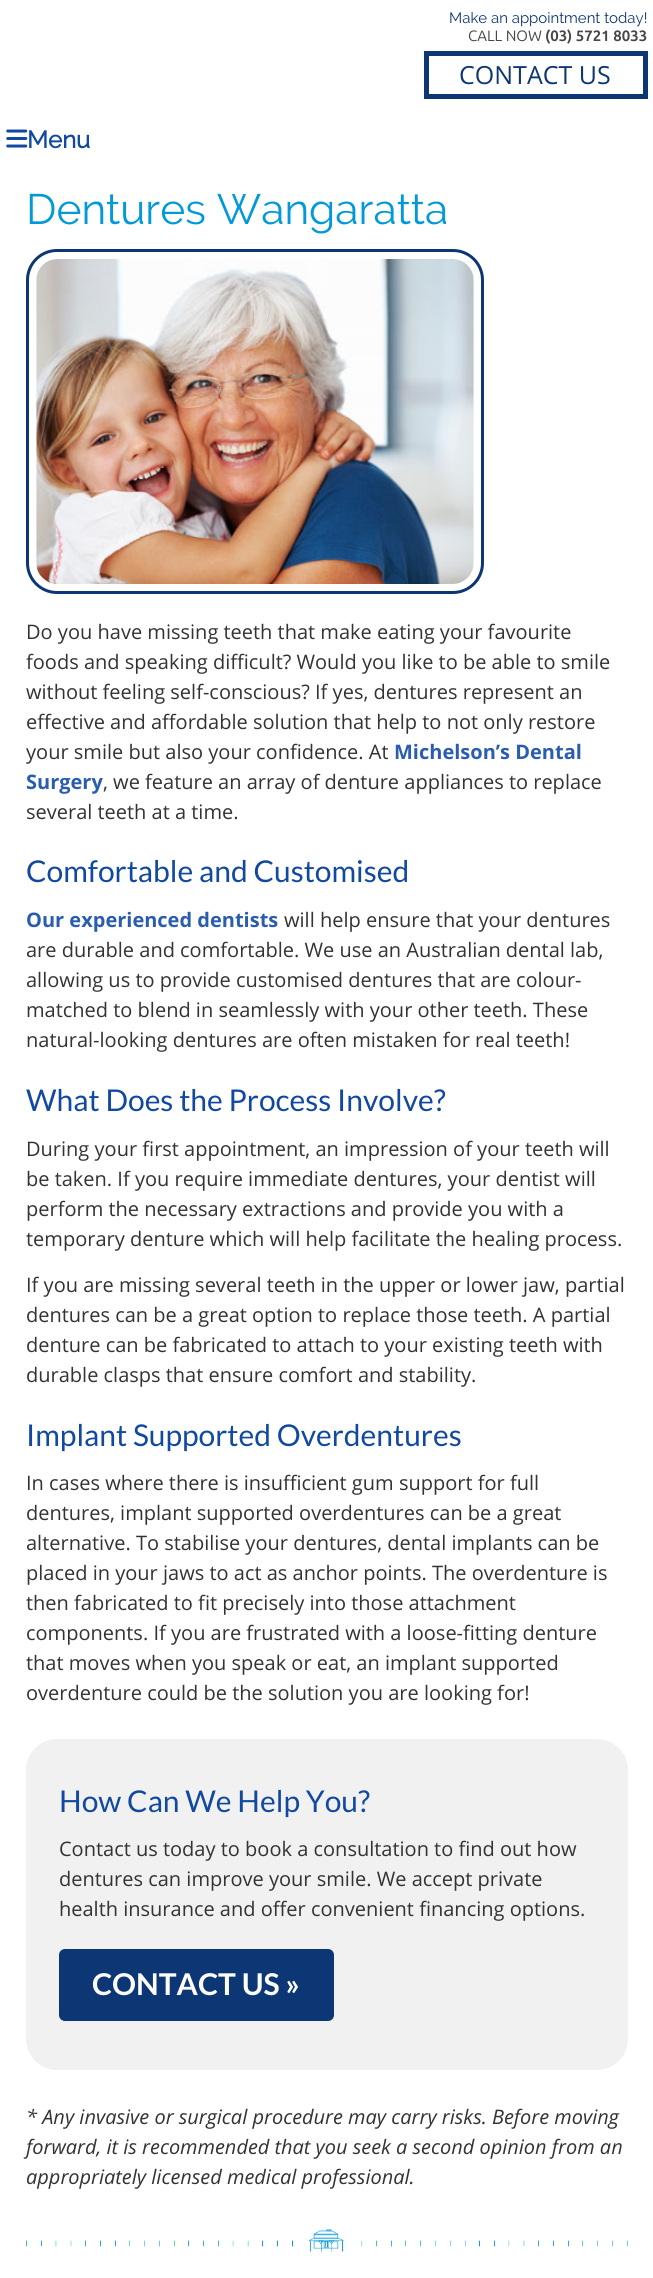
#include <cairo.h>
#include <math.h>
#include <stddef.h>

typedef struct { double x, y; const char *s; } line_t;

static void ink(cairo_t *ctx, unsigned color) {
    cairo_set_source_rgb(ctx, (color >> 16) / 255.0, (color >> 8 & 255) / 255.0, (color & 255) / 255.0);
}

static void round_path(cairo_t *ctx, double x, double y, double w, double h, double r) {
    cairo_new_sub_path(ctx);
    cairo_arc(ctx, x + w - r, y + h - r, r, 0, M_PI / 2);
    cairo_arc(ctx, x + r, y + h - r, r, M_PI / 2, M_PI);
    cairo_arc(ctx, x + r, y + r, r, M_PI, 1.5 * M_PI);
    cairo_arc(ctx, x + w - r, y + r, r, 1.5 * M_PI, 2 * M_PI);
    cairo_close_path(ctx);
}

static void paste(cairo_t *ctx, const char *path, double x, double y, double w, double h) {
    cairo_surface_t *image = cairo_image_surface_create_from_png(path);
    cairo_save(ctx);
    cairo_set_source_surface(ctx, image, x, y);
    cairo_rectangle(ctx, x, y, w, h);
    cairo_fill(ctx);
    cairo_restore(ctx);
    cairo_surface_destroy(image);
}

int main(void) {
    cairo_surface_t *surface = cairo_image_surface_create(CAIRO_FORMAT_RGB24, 653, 2278);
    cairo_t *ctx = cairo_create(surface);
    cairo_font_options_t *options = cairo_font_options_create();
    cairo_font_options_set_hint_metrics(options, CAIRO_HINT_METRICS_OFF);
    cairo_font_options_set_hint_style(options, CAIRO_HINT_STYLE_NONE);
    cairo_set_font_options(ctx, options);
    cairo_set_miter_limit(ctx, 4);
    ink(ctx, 0xFFFFFF);
    cairo_paint(ctx);
    cairo_select_font_face(ctx, "Raleway", CAIRO_FONT_SLANT_NORMAL, CAIRO_FONT_WEIGHT_NORMAL);
    cairo_set_font_size(ctx, 15);
    ink(ctx, 0x0D3675);
    cairo_move_to(ctx, 449, 23);
    cairo_show_text(ctx, "Make an appointment today!");
    cairo_select_font_face(ctx, "Ubuntu", CAIRO_FONT_SLANT_NORMAL, CAIRO_FONT_WEIGHT_NORMAL);
    ink(ctx, 0x46464B);
    cairo_move_to(ctx, 468, 41);
    cairo_show_text(ctx, "CALL NOW");
    cairo_select_font_face(ctx, "Ubuntu", CAIRO_FONT_SLANT_NORMAL, CAIRO_FONT_WEIGHT_BOLD);
    cairo_move_to(ctx, 545, 41);
    cairo_show_text(ctx, "(03) 5721 8033");
    cairo_rectangle(ctx, 426.5, 53.5, 219, 43);
    ink(ctx, 0x0D3675);
    cairo_set_line_width(ctx, 5);
    cairo_stroke(ctx);
    cairo_select_font_face(ctx, "Open Sans", CAIRO_FONT_SLANT_NORMAL, CAIRO_FONT_WEIGHT_NORMAL);
    cairo_set_font_size(ctx, 25);
    cairo_move_to(ctx, 459, 84);
    cairo_show_text(ctx, "CONTACT US");
    paste(ctx, "media/1.png", 6, 129, 22, 19);
    cairo_select_font_face(ctx, "Raleway", CAIRO_FONT_SLANT_NORMAL, CAIRO_FONT_WEIGHT_BOLD);
    cairo_set_font_size(ctx, 24);
    ink(ctx, 0x1149A0);
    cairo_move_to(ctx, 27, 148);
    cairo_show_text(ctx, "Menu");
    cairo_select_font_face(ctx, "Raleway", CAIRO_FONT_SLANT_NORMAL, CAIRO_FONT_WEIGHT_NORMAL);
    cairo_set_font_size(ctx, 42.5);
    ink(ctx, 0x0199DA);
    cairo_move_to(ctx, 26, 224);
    cairo_show_text(ctx, "Dentures Wangaratta");
    round_path(ctx, 27.5, 250.5, 455, 342, 29.5);
    ink(ctx, 0x0D3675);
    cairo_set_line_width(ctx, 3);
    cairo_stroke(ctx);
    paste(ctx, "media/2.png", 36, 259, 438, 325);
    cairo_select_font_face(ctx, "Open Sans", CAIRO_FONT_SLANT_NORMAL, CAIRO_FONT_WEIGHT_NORMAL);
    cairo_set_font_size(ctx, 20);
    ink(ctx, 0x333333);
    {
        static const line_t items[] = {
            {26, 639, "Do you have missing teeth that make eating your favourite"},
            {26, 669, "foods and speaking difficult? Would you like to be able to smile"},
            {26, 699, "without feeling self-conscious? If yes, dentures represent an"},
            {26, 729, "effective and affordable solution that help to not only restore"},
            {26, 759, "your smile but also your confidence. At"},
        };
        for (size_t i = 0; i < sizeof items / sizeof *items; i++) {
            cairo_move_to(ctx, items[i].x, items[i].y);
            cairo_show_text(ctx, items[i].s);
        }
    }
    cairo_select_font_face(ctx, "Open Sans", CAIRO_FONT_SLANT_NORMAL, CAIRO_FONT_WEIGHT_BOLD);
    ink(ctx, 0x2A5DB0);
    cairo_move_to(ctx, 394, 759);
    cairo_show_text(ctx, "Michelson’s Dental");
    cairo_move_to(ctx, 26, 789);
    cairo_show_text(ctx, "Surgery");
    cairo_select_font_face(ctx, "Open Sans", CAIRO_FONT_SLANT_NORMAL, CAIRO_FONT_WEIGHT_NORMAL);
    ink(ctx, 0x333333);
    cairo_move_to(ctx, 103, 789);
    cairo_show_text(ctx, ", we feature an array of denture appliances to replace");
    cairo_move_to(ctx, 26, 819);
    cairo_show_text(ctx, "several teeth at a time.");
    cairo_select_font_face(ctx, "Lato", CAIRO_FONT_SLANT_NORMAL, CAIRO_FONT_WEIGHT_NORMAL);
    cairo_set_font_size(ctx, 30);
    ink(ctx, 0x1149A0);
    cairo_move_to(ctx, 26, 882);
    cairo_show_text(ctx, "Comfortable and Customised");
    cairo_select_font_face(ctx, "Open Sans", CAIRO_FONT_SLANT_NORMAL, CAIRO_FONT_WEIGHT_BOLD);
    cairo_set_font_size(ctx, 20);
    ink(ctx, 0x2A5DB0);
    cairo_move_to(ctx, 26, 927);
    cairo_show_text(ctx, "Our experienced dentists");
    cairo_select_font_face(ctx, "Open Sans", CAIRO_FONT_SLANT_NORMAL, CAIRO_FONT_WEIGHT_NORMAL);
    ink(ctx, 0x333333);
    {
        static const line_t items[] = {
            {284, 927, "will help ensure that your dentures"},
            {26, 957, "are durable and comfortable. We use an Australian dental lab,"},
            {26, 987, "allowing us to provide customised dentures that are colour-"},
            {26, 1017, "matched to blend in seamlessly with your other teeth. These"},
            {26, 1047, "natural-looking dentures are often mistaken for real teeth!"},
        };
        for (size_t i = 0; i < sizeof items / sizeof *items; i++) {
            cairo_move_to(ctx, items[i].x, items[i].y);
            cairo_show_text(ctx, items[i].s);
        }
    }
    cairo_select_font_face(ctx, "Lato", CAIRO_FONT_SLANT_NORMAL, CAIRO_FONT_WEIGHT_NORMAL);
    cairo_set_font_size(ctx, 30);
    ink(ctx, 0x1149A0);
    cairo_move_to(ctx, 26, 1111);
    cairo_show_text(ctx, "What Does the Process Involve?");
    cairo_select_font_face(ctx, "Open Sans", CAIRO_FONT_SLANT_NORMAL, CAIRO_FONT_WEIGHT_NORMAL);
    cairo_set_font_size(ctx, 20);
    ink(ctx, 0x333333);
    {
        static const line_t items[] = {
            {26, 1156, "During your first appointment, an impression of your teeth will"},
            {26, 1186, "be taken. If you require immediate dentures, your dentist will"},
            {26, 1216, "perform the necessary extractions and provide you with a"},
            {26, 1246, "temporary denture which will help facilitate the healing process."},
            {26, 1292, "If you are missing several teeth in the upper or lower jaw, partial"},
            {26, 1322, "dentures can be a great option to replace those teeth. A partial"},
            {26, 1352, "denture can be fabricated to attach to your existing teeth with"},
            {26, 1382, "durable clasps that ensure comfort and stability."},
        };
        for (size_t i = 0; i < sizeof items / sizeof *items; i++) {
            cairo_move_to(ctx, items[i].x, items[i].y);
            cairo_show_text(ctx, items[i].s);
        }
    }
    cairo_select_font_face(ctx, "Lato", CAIRO_FONT_SLANT_NORMAL, CAIRO_FONT_WEIGHT_NORMAL);
    cairo_set_font_size(ctx, 30);
    ink(ctx, 0x1149A0);
    cairo_move_to(ctx, 26, 1446);
    cairo_show_text(ctx, "Implant Supported Overdentures");
    cairo_select_font_face(ctx, "Open Sans", CAIRO_FONT_SLANT_NORMAL, CAIRO_FONT_WEIGHT_NORMAL);
    cairo_set_font_size(ctx, 20);
    ink(ctx, 0x333333);
    {
        static const line_t items[] = {
            {26, 1490, "In cases where there is insufficient gum support for full"},
            {26, 1520, "dentures, implant supported overdentures can be a great"},
            {26, 1550, "alternative. To stabilise your dentures, dental implants can be"},
            {26, 1580, "placed in your jaws to act as anchor points. The overdenture is"},
            {26, 1610, "then fabricated to fit precisely into those attachment"},
            {26, 1640, "components. If you are frustrated with a loose-fitting denture"},
            {26, 1670, "that moves when you speak or eat, an implant supported"},
            {26, 1700, "overdenture could be the solution you are looking for!"},
        };
        for (size_t i = 0; i < sizeof items / sizeof *items; i++) {
            cairo_move_to(ctx, items[i].x, items[i].y);
            cairo_show_text(ctx, items[i].s);
        }
    }
    ink(ctx, 0xF1F1F1);
    round_path(ctx, 26.5, 1739.5, 601, 330, 30.5);
    cairo_fill_preserve(ctx);
    cairo_set_line_width(ctx, 1);
    cairo_stroke(ctx);
    cairo_select_font_face(ctx, "Lato", CAIRO_FONT_SLANT_NORMAL, CAIRO_FONT_WEIGHT_NORMAL);
    cairo_set_font_size(ctx, 30);
    ink(ctx, 0x1149A0);
    cairo_move_to(ctx, 59, 1812);
    cairo_show_text(ctx, "How Can We Help You?");
    cairo_select_font_face(ctx, "Open Sans", CAIRO_FONT_SLANT_NORMAL, CAIRO_FONT_WEIGHT_NORMAL);
    cairo_set_font_size(ctx, 20);
    ink(ctx, 0x333333);
    {
        static const line_t items[] = {
            {59, 1856, "Contact us today to book a consultation to find out how"},
            {59, 1886, "dentures can improve your smile. We accept private"},
            {59, 1916, "health insurance and offer convenient financing options."},
        };
        for (size_t i = 0; i < sizeof items / sizeof *items; i++) {
            cairo_move_to(ctx, items[i].x, items[i].y);
            cairo_show_text(ctx, items[i].s);
        }
    }
    ink(ctx, 0x0D3675);
    round_path(ctx, 60.5, 1950.5, 272, 69, 4.5);
    cairo_fill_preserve(ctx);
    cairo_set_line_width(ctx, 3);
    cairo_stroke(ctx);
    cairo_select_font_face(ctx, "Lato", CAIRO_FONT_SLANT_NORMAL, CAIRO_FONT_WEIGHT_BOLD);
    cairo_set_font_size(ctx, 30);
    ink(ctx, 0xFFFFFF);
    cairo_move_to(ctx, 92, 1995);
    cairo_show_text(ctx, "CONTACT US »");
    cairo_select_font_face(ctx, "Open Sans", CAIRO_FONT_SLANT_ITALIC, CAIRO_FONT_WEIGHT_NORMAL);
    cairo_set_font_size(ctx, 20);
    ink(ctx, 0x333333);
    {
        static const line_t items[] = {
            {26, 2124, "* Any invasive or surgical procedure may carry risks. Before moving"},
            {26, 2154, "forward, it is recommended that you seek a second opinion from an"},
            {26, 2184, "appropriately licensed medical professional."},
        };
        for (size_t i = 0; i < sizeof items / sizeof *items; i++) {
            cairo_move_to(ctx, items[i].x, items[i].y);
            cairo_show_text(ctx, items[i].s);
        }
    }
    paste(ctx, "media/3.png", 26, 2229, 602, 23);
    cairo_surface_write_to_png(surface, "image.png");
    cairo_font_options_destroy(options);
    cairo_destroy(ctx);
    cairo_surface_destroy(surface);
    return 0;
}
